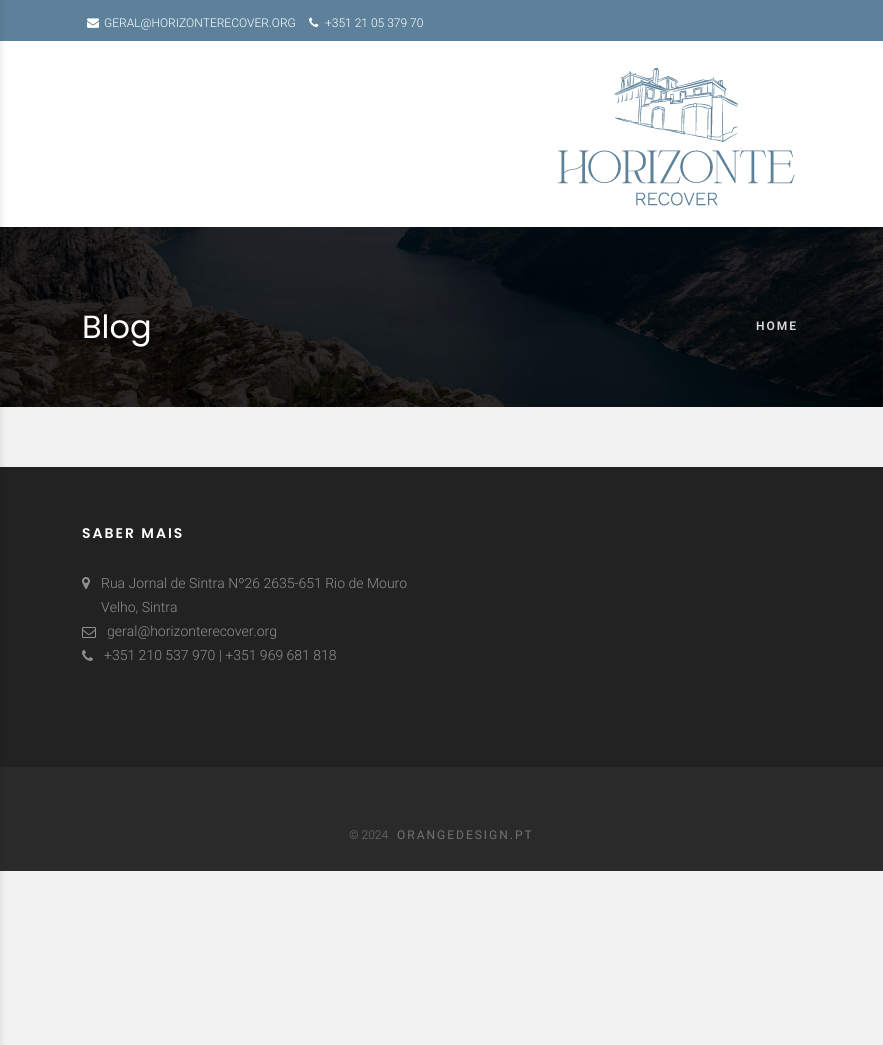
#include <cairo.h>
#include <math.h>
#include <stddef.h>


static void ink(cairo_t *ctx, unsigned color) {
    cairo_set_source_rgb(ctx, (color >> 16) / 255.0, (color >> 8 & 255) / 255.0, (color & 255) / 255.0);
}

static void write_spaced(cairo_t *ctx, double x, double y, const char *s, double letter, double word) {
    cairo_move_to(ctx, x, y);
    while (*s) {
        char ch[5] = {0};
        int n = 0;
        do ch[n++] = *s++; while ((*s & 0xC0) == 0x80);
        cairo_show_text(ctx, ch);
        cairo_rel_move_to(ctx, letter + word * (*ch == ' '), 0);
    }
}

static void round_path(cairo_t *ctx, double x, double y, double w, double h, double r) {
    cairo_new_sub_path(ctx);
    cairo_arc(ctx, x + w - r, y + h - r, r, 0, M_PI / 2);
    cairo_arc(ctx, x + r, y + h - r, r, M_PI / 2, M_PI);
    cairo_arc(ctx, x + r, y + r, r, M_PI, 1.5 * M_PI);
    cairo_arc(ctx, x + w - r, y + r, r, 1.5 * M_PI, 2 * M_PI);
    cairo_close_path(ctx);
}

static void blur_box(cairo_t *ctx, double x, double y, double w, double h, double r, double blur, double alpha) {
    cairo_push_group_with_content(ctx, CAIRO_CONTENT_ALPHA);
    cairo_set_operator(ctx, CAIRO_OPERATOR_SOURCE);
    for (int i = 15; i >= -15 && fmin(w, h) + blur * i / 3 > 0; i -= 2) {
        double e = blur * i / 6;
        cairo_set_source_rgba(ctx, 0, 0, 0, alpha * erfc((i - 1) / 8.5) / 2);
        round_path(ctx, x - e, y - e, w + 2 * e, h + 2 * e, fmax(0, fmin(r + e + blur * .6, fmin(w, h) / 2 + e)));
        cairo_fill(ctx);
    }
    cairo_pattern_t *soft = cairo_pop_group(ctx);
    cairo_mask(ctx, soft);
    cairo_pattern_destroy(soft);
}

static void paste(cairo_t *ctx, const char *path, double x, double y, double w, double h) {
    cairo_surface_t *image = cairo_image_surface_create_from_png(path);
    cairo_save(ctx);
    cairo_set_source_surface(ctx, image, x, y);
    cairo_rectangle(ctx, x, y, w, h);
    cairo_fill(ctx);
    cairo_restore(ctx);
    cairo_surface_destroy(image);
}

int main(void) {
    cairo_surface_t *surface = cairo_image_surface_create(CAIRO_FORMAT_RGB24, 883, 1045);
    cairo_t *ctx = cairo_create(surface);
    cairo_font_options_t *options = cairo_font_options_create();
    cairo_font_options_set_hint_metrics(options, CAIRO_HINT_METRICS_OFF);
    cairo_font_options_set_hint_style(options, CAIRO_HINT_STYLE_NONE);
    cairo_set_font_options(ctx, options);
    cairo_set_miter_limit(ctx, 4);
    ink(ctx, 0xF2F2F2);
    cairo_paint(ctx);
    ink(ctx, 0xFFFFFF);
    cairo_rectangle(ctx, 0, 41, 883, 186);
    cairo_fill(ctx);
    ink(ctx, 0x5D819A);
    cairo_rectangle(ctx, 0, 0, 883, 41);
    cairo_fill(ctx);
    paste(ctx, "media/4.png", 0, 227, 883, 180);
    ink(ctx, 0x222222);
    cairo_rectangle(ctx, 0, 467, 883, 300);
    cairo_fill(ctx);
    ink(ctx, 0x2A2A2A);
    cairo_rectangle(ctx, 0, 767, 883, 104);
    cairo_fill(ctx);
    ink(ctx, 0x000000);
    blur_box(ctx, -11, -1, 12, 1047, 0, 3.5, 0.1);
    paste(ctx, "media/1.png", 558, 67, 237, 139);
    paste(ctx, "media/2.png", 87, 18, 12, 10);
    cairo_select_font_face(ctx, "Roboto Light", CAIRO_FONT_SLANT_NORMAL, CAIRO_FONT_WEIGHT_NORMAL);
    cairo_set_font_size(ctx, 12);
    ink(ctx, 0xFFFFFF);
    cairo_move_to(ctx, 104, 27);
    cairo_show_text(ctx, "GERAL@HORIZONTERECOVER.ORG");
    paste(ctx, "media/3.png", 309, 17, 10, 10);
    cairo_move_to(ctx, 325, 27);
    cairo_show_text(ctx, "+351 21 05 379 70");
    cairo_select_font_face(ctx, "Poppins", CAIRO_FONT_SLANT_NORMAL, CAIRO_FONT_WEIGHT_NORMAL);
    cairo_set_font_size(ctx, 32);
    cairo_move_to(ctx, 82, 338);
    cairo_show_text(ctx, "Blog");
    cairo_select_font_face(ctx, "Roboto SemiBold", CAIRO_FONT_SLANT_NORMAL, CAIRO_FONT_WEIGHT_NORMAL);
    cairo_set_font_size(ctx, 12);
    ink(ctx, 0xDBDBDB);
    write_spaced(ctx, 756, 330, "HOME", 2, 0);
    cairo_select_font_face(ctx, "Poppins SemiBold", CAIRO_FONT_SLANT_NORMAL, CAIRO_FONT_WEIGHT_NORMAL);
    cairo_set_font_size(ctx, 14);
    ink(ctx, 0xFFFFFF);
    write_spaced(ctx, 82, 538, "SABER MAIS", 2, 0);
    paste(ctx, "media/5.png", 82, 577, 8, 12);
    cairo_select_font_face(ctx, "Roboto Light", CAIRO_FONT_SLANT_NORMAL, CAIRO_FONT_WEIGHT_NORMAL);
    ink(ctx, 0x8F8F8F);
    cairo_move_to(ctx, 101, 588);
    cairo_show_text(ctx, "Rua Jornal de Sintra Nº26 2635-651 Rio de Mouro");
    cairo_move_to(ctx, 101, 612);
    cairo_show_text(ctx, "Velho, Sintra");
    paste(ctx, "media/6.png", 82, 627, 14, 11);
    cairo_move_to(ctx, 107, 636);
    cairo_show_text(ctx, "geral@horizonterecover.org");
    paste(ctx, "media/7.png", 82, 650, 11, 11);
    cairo_move_to(ctx, 104, 660);
    cairo_show_text(ctx, "+351 210 537 970 | +351 969 681 818");
    cairo_set_font_size(ctx, 12);
    ink(ctx, 0x727272);
    cairo_move_to(ctx, 349, 839);
    cairo_show_text(ctx, "© 2024");
    cairo_select_font_face(ctx, "Roboto", CAIRO_FONT_SLANT_NORMAL, CAIRO_FONT_WEIGHT_NORMAL);
    write_spaced(ctx, 397, 839, "ORANGEDESIGN.PT", 2, 0);
    cairo_surface_write_to_png(surface, "image.png");
    cairo_font_options_destroy(options);
    cairo_destroy(ctx);
    cairo_surface_destroy(surface);
    return 0;
}
